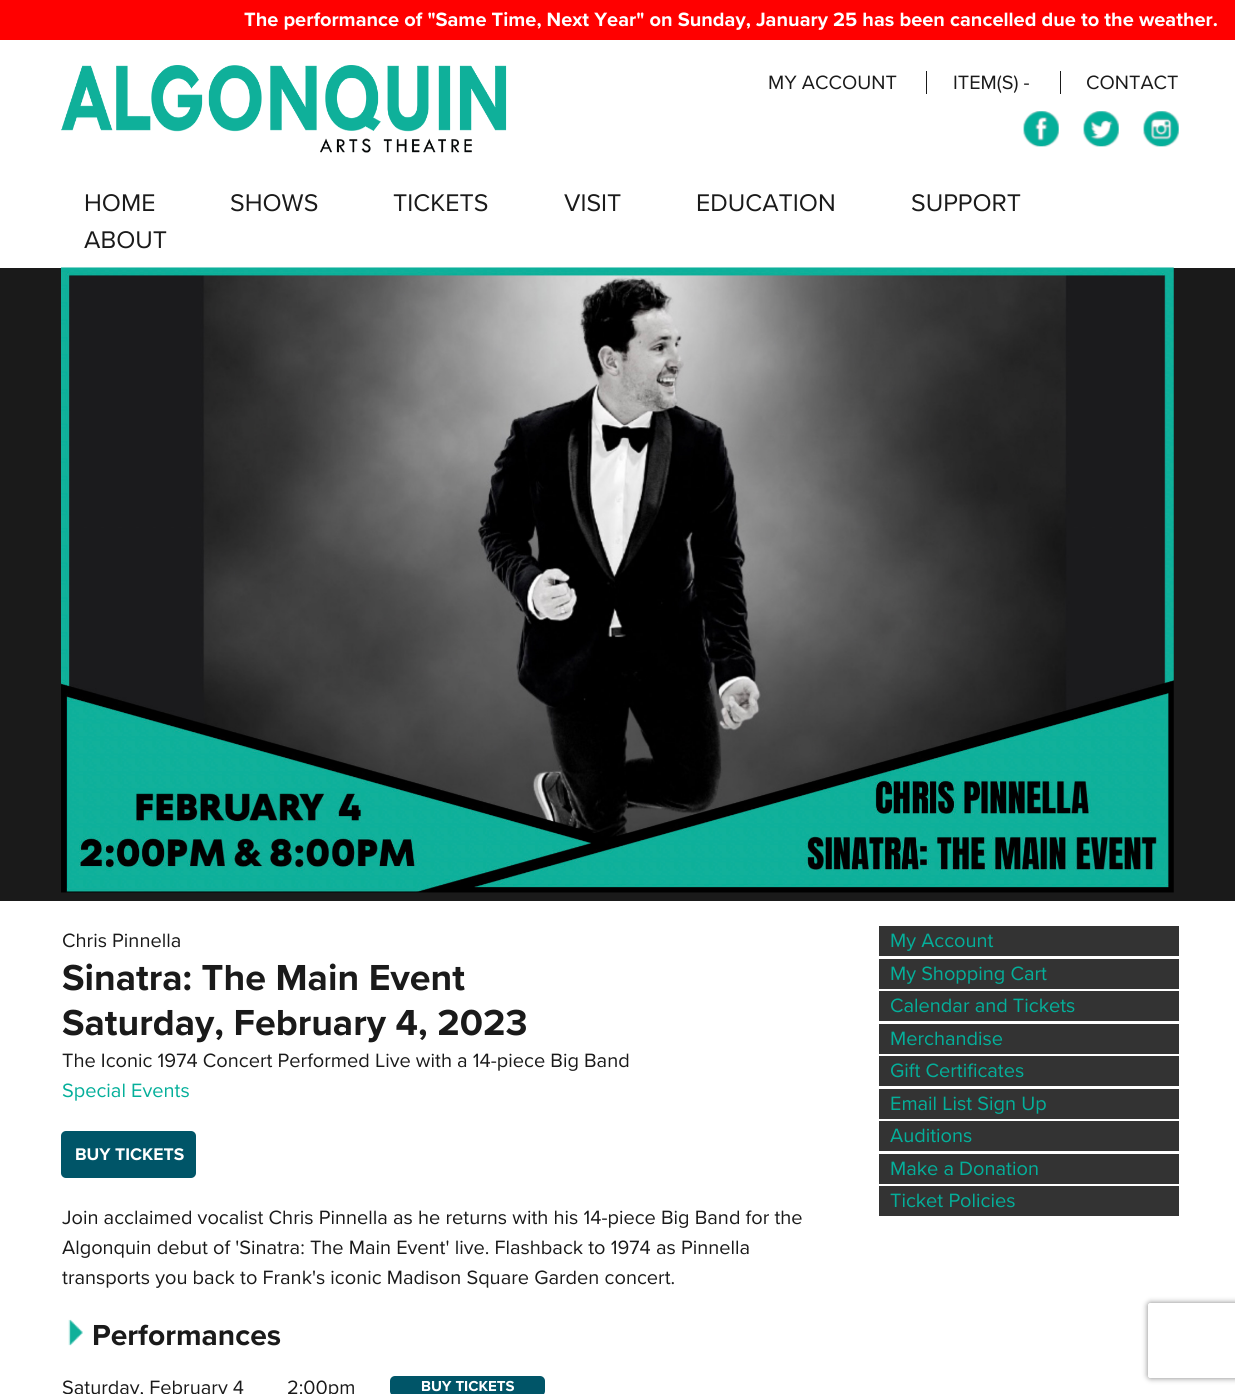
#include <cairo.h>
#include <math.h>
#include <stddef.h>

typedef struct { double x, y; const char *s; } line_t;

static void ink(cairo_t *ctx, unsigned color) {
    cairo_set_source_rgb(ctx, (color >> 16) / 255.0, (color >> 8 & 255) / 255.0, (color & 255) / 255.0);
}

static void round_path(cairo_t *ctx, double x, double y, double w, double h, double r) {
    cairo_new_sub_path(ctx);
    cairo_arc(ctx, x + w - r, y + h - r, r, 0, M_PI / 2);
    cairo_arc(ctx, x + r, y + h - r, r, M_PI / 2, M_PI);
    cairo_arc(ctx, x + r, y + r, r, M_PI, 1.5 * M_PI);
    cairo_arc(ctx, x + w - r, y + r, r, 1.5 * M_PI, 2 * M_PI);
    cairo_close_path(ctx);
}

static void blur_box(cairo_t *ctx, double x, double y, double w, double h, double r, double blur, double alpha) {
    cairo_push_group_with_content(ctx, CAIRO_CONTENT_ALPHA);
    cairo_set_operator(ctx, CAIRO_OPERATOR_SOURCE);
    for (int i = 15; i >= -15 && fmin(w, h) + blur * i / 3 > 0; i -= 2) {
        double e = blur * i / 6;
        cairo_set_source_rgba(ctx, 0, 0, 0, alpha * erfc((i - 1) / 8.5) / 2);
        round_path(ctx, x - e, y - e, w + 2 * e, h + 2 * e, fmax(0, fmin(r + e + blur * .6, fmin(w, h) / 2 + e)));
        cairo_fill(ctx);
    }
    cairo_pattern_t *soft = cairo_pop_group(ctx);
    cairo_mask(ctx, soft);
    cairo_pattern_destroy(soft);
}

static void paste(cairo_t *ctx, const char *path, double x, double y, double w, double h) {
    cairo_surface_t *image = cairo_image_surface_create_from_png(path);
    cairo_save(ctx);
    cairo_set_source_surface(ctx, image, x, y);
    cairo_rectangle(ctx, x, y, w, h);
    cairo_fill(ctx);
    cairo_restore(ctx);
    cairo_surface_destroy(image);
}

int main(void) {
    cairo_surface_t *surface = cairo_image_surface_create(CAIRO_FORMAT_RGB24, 1235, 1394);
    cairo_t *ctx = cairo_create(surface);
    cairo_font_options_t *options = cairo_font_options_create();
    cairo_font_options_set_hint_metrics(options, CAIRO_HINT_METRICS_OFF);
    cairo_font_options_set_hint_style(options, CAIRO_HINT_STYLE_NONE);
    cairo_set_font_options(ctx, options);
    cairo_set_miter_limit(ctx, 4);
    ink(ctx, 0xFFFFFF);
    cairo_paint(ctx);
    ink(ctx, 0xFF0000);
    cairo_rectangle(ctx, 0, 0, 1235, 40);
    cairo_fill(ctx);
    cairo_select_font_face(ctx, "Proxima Nova", CAIRO_FONT_SLANT_NORMAL, CAIRO_FONT_WEIGHT_BOLD);
    cairo_set_font_size(ctx, 20);
    ink(ctx, 0xFFFFFF);
    cairo_move_to(ctx, 244, 26);
    cairo_show_text(ctx, "The performance of \"Same Time, Next Year\" on Sunday, January 25 has been cancelled due to the weather.");
    paste(ctx, "media/1.png", 61, 65, 446, 88);
    cairo_select_font_face(ctx, "Proxima Nova", CAIRO_FONT_SLANT_NORMAL, CAIRO_FONT_WEIGHT_NORMAL);
    ink(ctx, 0x1A1A1A);
    cairo_move_to(ctx, 768, 89);
    cairo_show_text(ctx, "MY ACCOUNT");
    cairo_rectangle(ctx, 926, 71, 1, 23);
    cairo_fill(ctx);
    cairo_move_to(ctx, 953, 89);
    cairo_show_text(ctx, "ITEM(S) -");
    cairo_rectangle(ctx, 1060, 71, 1, 23);
    cairo_fill(ctx);
    cairo_move_to(ctx, 1086, 89);
    cairo_show_text(ctx, "CONTACT");
    paste(ctx, "media/2.png", 1023, 111, 36, 36);
    paste(ctx, "media/3.png", 1083, 111, 36, 36);
    paste(ctx, "media/4.png", 1143, 111, 36, 36);
    cairo_set_font_size(ctx, 25);
    {
        static const line_t items[] = {
            {84, 211, "HOME"},
            {230, 211, "SHOWS"},
            {393, 211, "TICKETS"},
            {564, 211, "VISIT"},
            {696, 211, "EDUCATION"},
            {911, 211, "SUPPORT"},
            {84, 248, "ABOUT"},
        };
        for (size_t i = 0; i < sizeof items / sizeof *items; i++) {
            cairo_move_to(ctx, items[i].x, items[i].y);
            cairo_show_text(ctx, items[i].s);
        }
    }
    cairo_rectangle(ctx, 0, 268, 1235, 633);
    cairo_fill(ctx);
    paste(ctx, "media/5.png", 61, 267, 1113, 626);
    cairo_set_font_size(ctx, 20);
    cairo_move_to(ctx, 62, 947);
    cairo_show_text(ctx, "Chris Pinnella");
    cairo_select_font_face(ctx, "Proxima Nova", CAIRO_FONT_SLANT_NORMAL, CAIRO_FONT_WEIGHT_BOLD);
    cairo_set_font_size(ctx, 37.5);
    cairo_move_to(ctx, 62, 990);
    cairo_show_text(ctx, "Sinatra: The Main Event");
    cairo_move_to(ctx, 62, 1035);
    cairo_show_text(ctx, "Saturday, February 4, 2023");
    cairo_select_font_face(ctx, "Proxima Nova", CAIRO_FONT_SLANT_NORMAL, CAIRO_FONT_WEIGHT_NORMAL);
    cairo_set_font_size(ctx, 20);
    cairo_move_to(ctx, 62, 1067);
    cairo_show_text(ctx, "The Iconic 1974 Concert Performed Live with a 14-piece Big Band");
    ink(ctx, 0x04AF9A);
    cairo_move_to(ctx, 62, 1097);
    cairo_show_text(ctx, "Special Events");
    ink(ctx, 0x005568);
    round_path(ctx, 61, 1131, 135, 47, 5);
    cairo_fill(ctx);
    cairo_select_font_face(ctx, "Proxima Nova", CAIRO_FONT_SLANT_NORMAL, CAIRO_FONT_WEIGHT_BOLD);
    cairo_set_font_size(ctx, 17.5);
    ink(ctx, 0xFFFFFF);
    cairo_move_to(ctx, 75, 1160);
    cairo_show_text(ctx, "BUY TICKETS");
    cairo_select_font_face(ctx, "Proxima Nova", CAIRO_FONT_SLANT_NORMAL, CAIRO_FONT_WEIGHT_NORMAL);
    cairo_set_font_size(ctx, 20);
    ink(ctx, 0x1A1A1A);
    {
        static const line_t items[] = {
            {62, 1224, "Join acclaimed vocalist Chris Pinnella as he returns with his 14-piece Big Band for the"},
            {62, 1254, "Algonquin debut of 'Sinatra: The Main Event' live. Flashback to 1974 as Pinnella"},
            {62, 1284, "transports you back to Frank's iconic Madison Square Garden concert."},
        };
        for (size_t i = 0; i < sizeof items / sizeof *items; i++) {
            cairo_move_to(ctx, items[i].x, items[i].y);
            cairo_show_text(ctx, items[i].s);
        }
    }
    paste(ctx, "media/6.png", 68, 1319, 15, 27);
    cairo_select_font_face(ctx, "Proxima Nova", CAIRO_FONT_SLANT_NORMAL, CAIRO_FONT_WEIGHT_BOLD);
    cairo_set_font_size(ctx, 30);
    cairo_move_to(ctx, 92, 1345);
    cairo_show_text(ctx, "Performances");
    cairo_select_font_face(ctx, "Proxima Nova", CAIRO_FONT_SLANT_NORMAL, CAIRO_FONT_WEIGHT_NORMAL);
    cairo_set_font_size(ctx, 20);
    cairo_move_to(ctx, 62, 1394);
    cairo_show_text(ctx, "Saturday, February 4");
    cairo_move_to(ctx, 287, 1394);
    cairo_show_text(ctx, "2:00pm");
    ink(ctx, 0x005568);
    round_path(ctx, 390, 1376, 155, 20, 5);
    cairo_fill(ctx);
    cairo_select_font_face(ctx, "Proxima Nova", CAIRO_FONT_SLANT_NORMAL, CAIRO_FONT_WEIGHT_BOLD);
    cairo_set_font_size(ctx, 15);
    ink(ctx, 0xFFFFFF);
    cairo_move_to(ctx, 421, 1391);
    cairo_show_text(ctx, "BUY TICKETS");
    ink(ctx, 0x333333);
    cairo_rectangle(ctx, 879, 926, 300, 30);
    cairo_fill(ctx);
    cairo_select_font_face(ctx, "Proxima Nova", CAIRO_FONT_SLANT_NORMAL, CAIRO_FONT_WEIGHT_NORMAL);
    cairo_set_font_size(ctx, 20);
    ink(ctx, 0x04AF9A);
    cairo_move_to(ctx, 890, 947);
    cairo_show_text(ctx, "My Account");
    ink(ctx, 0x333333);
    cairo_rectangle(ctx, 879, 959, 300, 30);
    cairo_fill(ctx);
    ink(ctx, 0x04AF9A);
    cairo_move_to(ctx, 890, 980);
    cairo_show_text(ctx, "My Shopping Cart");
    ink(ctx, 0x333333);
    cairo_rectangle(ctx, 879, 991, 300, 30);
    cairo_fill(ctx);
    ink(ctx, 0x04AF9A);
    cairo_move_to(ctx, 890, 1012);
    cairo_show_text(ctx, "Calendar and Tickets");
    ink(ctx, 0x333333);
    cairo_rectangle(ctx, 879, 1024, 300, 30);
    cairo_fill(ctx);
    ink(ctx, 0x04AF9A);
    cairo_move_to(ctx, 890, 1045);
    cairo_show_text(ctx, "Merchandise");
    ink(ctx, 0x333333);
    cairo_rectangle(ctx, 879, 1056, 300, 30);
    cairo_fill(ctx);
    ink(ctx, 0x04AF9A);
    cairo_move_to(ctx, 890, 1077);
    cairo_show_text(ctx, "Gift Certificates");
    ink(ctx, 0x333333);
    cairo_rectangle(ctx, 879, 1089, 300, 30);
    cairo_fill(ctx);
    ink(ctx, 0x04AF9A);
    cairo_move_to(ctx, 890, 1110);
    cairo_show_text(ctx, "Email List Sign Up");
    ink(ctx, 0x333333);
    cairo_rectangle(ctx, 879, 1121, 300, 30);
    cairo_fill(ctx);
    ink(ctx, 0x04AF9A);
    cairo_move_to(ctx, 890, 1142);
    cairo_show_text(ctx, "Auditions");
    ink(ctx, 0x333333);
    cairo_rectangle(ctx, 879, 1154, 300, 30);
    cairo_fill(ctx);
    ink(ctx, 0x04AF9A);
    cairo_move_to(ctx, 890, 1175);
    cairo_show_text(ctx, "Make a Donation");
    ink(ctx, 0x333333);
    cairo_rectangle(ctx, 879, 1186, 300, 30);
    cairo_fill(ctx);
    ink(ctx, 0x04AF9A);
    cairo_move_to(ctx, 890, 1207);
    cairo_show_text(ctx, "Ticket Policies");
    cairo_save(ctx);
    cairo_set_fill_rule(ctx, CAIRO_FILL_RULE_EVEN_ODD);
    cairo_new_path(ctx);
    cairo_move_to(ctx, 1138, 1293);
    cairo_line_to(ctx, 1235, 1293);
    cairo_line_to(ctx, 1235, 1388);
    cairo_line_to(ctx, 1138, 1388);
    cairo_close_path(ctx);
    cairo_move_to(ctx, 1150.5, 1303);
    cairo_line_to(ctx, 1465.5, 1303);
    cairo_curve_to(ctx, 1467, 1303, 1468, 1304, 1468, 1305.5);
    cairo_line_to(ctx, 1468, 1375.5);
    cairo_curve_to(ctx, 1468, 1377, 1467, 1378, 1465.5, 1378);
    cairo_line_to(ctx, 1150.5, 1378);
    cairo_curve_to(ctx, 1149, 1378, 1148, 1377, 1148, 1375.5);
    cairo_line_to(ctx, 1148, 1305.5);
    cairo_curve_to(ctx, 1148, 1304, 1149, 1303, 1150.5, 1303);
    cairo_close_path(ctx);
    cairo_clip(ctx);
    ink(ctx, 0x808080);
    blur_box(ctx, 1148, 1303, 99, 75, 2.5, 3, 1);
    cairo_restore(ctx);
    cairo_surface_write_to_png(surface, "image.png");
    cairo_font_options_destroy(options);
    cairo_destroy(ctx);
    cairo_surface_destroy(surface);
    return 0;
}
